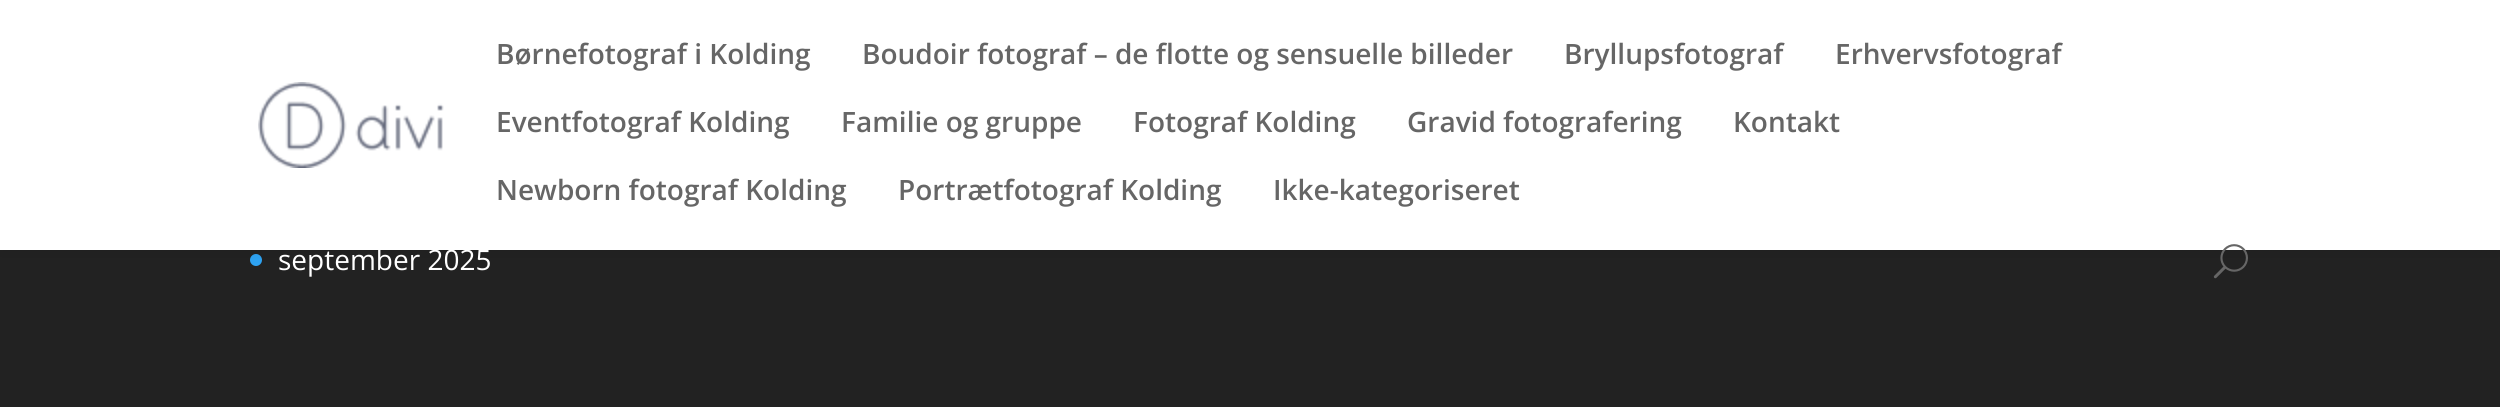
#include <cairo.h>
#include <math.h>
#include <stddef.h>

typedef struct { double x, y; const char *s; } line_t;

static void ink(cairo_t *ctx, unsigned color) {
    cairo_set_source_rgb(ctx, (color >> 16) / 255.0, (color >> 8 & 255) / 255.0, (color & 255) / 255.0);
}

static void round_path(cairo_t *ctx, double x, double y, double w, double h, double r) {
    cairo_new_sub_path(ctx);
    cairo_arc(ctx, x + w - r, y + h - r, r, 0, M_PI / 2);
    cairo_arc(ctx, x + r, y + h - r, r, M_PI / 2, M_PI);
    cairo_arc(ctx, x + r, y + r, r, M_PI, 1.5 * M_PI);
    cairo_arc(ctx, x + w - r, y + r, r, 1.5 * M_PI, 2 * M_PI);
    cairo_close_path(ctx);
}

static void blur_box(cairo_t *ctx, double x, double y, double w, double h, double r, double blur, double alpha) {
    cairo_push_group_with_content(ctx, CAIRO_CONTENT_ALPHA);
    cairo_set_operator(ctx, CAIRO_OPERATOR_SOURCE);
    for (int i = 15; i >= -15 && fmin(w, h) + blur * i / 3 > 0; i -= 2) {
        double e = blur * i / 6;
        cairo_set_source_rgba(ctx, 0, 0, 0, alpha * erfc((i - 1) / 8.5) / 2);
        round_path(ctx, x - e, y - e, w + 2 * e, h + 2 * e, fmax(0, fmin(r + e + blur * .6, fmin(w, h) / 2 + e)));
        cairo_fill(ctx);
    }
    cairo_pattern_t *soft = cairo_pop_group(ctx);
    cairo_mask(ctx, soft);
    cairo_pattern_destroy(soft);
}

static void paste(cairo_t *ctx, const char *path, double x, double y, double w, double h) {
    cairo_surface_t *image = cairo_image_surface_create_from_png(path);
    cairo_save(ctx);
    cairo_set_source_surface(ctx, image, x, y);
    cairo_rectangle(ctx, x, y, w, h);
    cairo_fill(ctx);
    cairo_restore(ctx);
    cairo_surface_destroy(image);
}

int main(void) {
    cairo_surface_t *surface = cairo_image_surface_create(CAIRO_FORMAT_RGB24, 2500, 407);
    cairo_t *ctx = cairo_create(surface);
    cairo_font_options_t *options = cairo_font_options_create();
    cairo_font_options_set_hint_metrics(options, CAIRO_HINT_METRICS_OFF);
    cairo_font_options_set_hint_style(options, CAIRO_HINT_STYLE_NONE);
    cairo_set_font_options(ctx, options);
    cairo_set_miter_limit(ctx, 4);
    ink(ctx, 0x222222);
    cairo_paint(ctx);
    ink(ctx, 0x2EA3F2);
    cairo_arc(ctx, 256, 260, 6, 0, 2 * M_PI);
    cairo_fill(ctx);
    ink(ctx, 0x000000);
    blur_box(ctx, 0, 0, 2500, 250, 0, 7, 0.1);
    ink(ctx, 0xFFFFFF);
    cairo_rectangle(ctx, 0, 0, 2500, 250);
    cairo_fill(ctx);
    paste(ctx, "media/1.png", 258, 82, 186, 86);
    cairo_select_font_face(ctx, "Open Sans SemiBold", CAIRO_FONT_SLANT_NORMAL, CAIRO_FONT_WEIGHT_NORMAL);
    cairo_set_font_size(ctx, 28);
    ink(ctx, 0x666666);
    {
        static const line_t items[] = {
            {496, 64, "Børnefotograf i Kolding"},
            {862, 64, "Boudoir fotograf – de flotte og sensuelle billeder"},
            {1564, 64, "Bryllupsfotograf"},
            {1835, 64, "Erhvervsfotograf"},
            {496, 132, "Eventfotograf Kolding"},
            {841, 132, "Familie og gruppe"},
            {1133, 132, "Fotograf Kolding"},
            {1407, 132, "Gravid fotografering"},
            {1733, 132, "Kontakt"},
            {496, 200, "Newborn fotograf Kolding"},
            {898, 200, "Portrætfotograf Kolding"},
            {1273, 200, "Ikke-kategoriseret"},
        };
        for (size_t i = 0; i < sizeof items / sizeof *items; i++) {
            cairo_move_to(ctx, items[i].x, items[i].y);
            cairo_show_text(ctx, items[i].s);
        }
    }
    paste(ctx, "media/2.png", 2213, 244, 35, 35);
    cairo_select_font_face(ctx, "Open Sans", CAIRO_FONT_SLANT_NORMAL, CAIRO_FONT_WEIGHT_NORMAL);
    ink(ctx, 0xFFFFFF);
    cairo_move_to(ctx, 278, 270);
    cairo_show_text(ctx, "september 2025");
    cairo_surface_write_to_png(surface, "image.png");
    cairo_font_options_destroy(options);
    cairo_destroy(ctx);
    cairo_surface_destroy(surface);
    return 0;
}
